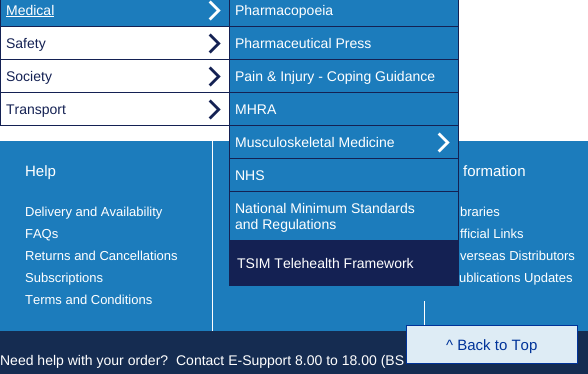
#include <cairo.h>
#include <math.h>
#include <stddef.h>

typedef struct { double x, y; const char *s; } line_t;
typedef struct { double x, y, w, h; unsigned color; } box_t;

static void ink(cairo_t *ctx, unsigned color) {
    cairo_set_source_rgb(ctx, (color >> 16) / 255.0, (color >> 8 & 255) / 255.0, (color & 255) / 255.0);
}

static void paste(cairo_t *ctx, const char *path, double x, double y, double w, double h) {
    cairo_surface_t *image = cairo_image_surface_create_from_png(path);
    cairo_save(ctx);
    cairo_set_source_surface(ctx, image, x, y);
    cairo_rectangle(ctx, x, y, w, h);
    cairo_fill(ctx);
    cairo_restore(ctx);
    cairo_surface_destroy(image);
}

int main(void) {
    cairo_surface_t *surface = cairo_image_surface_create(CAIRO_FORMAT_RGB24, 588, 374);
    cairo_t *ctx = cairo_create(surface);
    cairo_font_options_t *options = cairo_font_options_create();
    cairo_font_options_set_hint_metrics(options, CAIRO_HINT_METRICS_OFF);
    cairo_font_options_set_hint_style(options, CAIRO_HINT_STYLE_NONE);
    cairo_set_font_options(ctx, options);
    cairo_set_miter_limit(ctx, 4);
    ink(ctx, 0xFFFFFF);
    cairo_paint(ctx);
    ink(ctx, 0x1C7CBC);
    cairo_rectangle(ctx, 1, 0, 228, 26);
    cairo_fill(ctx);
    paste(ctx, "media/1.png", 208, 0, 13, 21);
    ink(ctx, 0x142153);
    cairo_rectangle(ctx, 0, 26, 230, 1);
    cairo_fill(ctx);
    cairo_rectangle(ctx, 0, 0, 1, 27);
    cairo_fill(ctx);
    cairo_select_font_face(ctx, "Liberation Sans", CAIRO_FONT_SLANT_NORMAL, CAIRO_FONT_WEIGHT_NORMAL);
    cairo_set_font_size(ctx, 14);
    ink(ctx, 0xFFFFFF);
    cairo_move_to(ctx, 6, 15);
    cairo_show_text(ctx, "Medical");
    {
        static const box_t items[] = {
            {6, 16, 48, 1, 0xFFFFFF},
            {230, 0, 228, 26, 0x1C7CBC},
            {0, 141, 588, 190, 0x1C7CBC},
            {458, 0, 1, 241, 0x142153},
            {229, 26, 230, 1, 0x142153},
            {229, 0, 1, 27, 0x142153},
        };
        for (size_t i = 0; i < sizeof items / sizeof *items; i++) {
            ink(ctx, items[i].color);
            cairo_rectangle(ctx, items[i].x, items[i].y, items[i].w, items[i].h);
            cairo_fill(ctx);
        }
    }
    ink(ctx, 0xFFFFFF);
    cairo_move_to(ctx, 235, 15);
    cairo_show_text(ctx, "Pharmacopoeia");
    ink(ctx, 0x1C7CBC);
    cairo_rectangle(ctx, 230, 27, 228, 32);
    cairo_fill(ctx);
    ink(ctx, 0x142153);
    cairo_rectangle(ctx, 229, 59, 230, 1);
    cairo_fill(ctx);
    ink(ctx, 0xFFFFFF);
    cairo_move_to(ctx, 235, 48);
    cairo_show_text(ctx, "Pharmaceutical Press");
    ink(ctx, 0x1C7CBC);
    cairo_rectangle(ctx, 230, 60, 228, 32);
    cairo_fill(ctx);
    ink(ctx, 0x142153);
    cairo_rectangle(ctx, 229, 92, 230, 1);
    cairo_fill(ctx);
    ink(ctx, 0xFFFFFF);
    cairo_move_to(ctx, 235, 81);
    cairo_show_text(ctx, "Pain & Injury - Coping Guidance");
    ink(ctx, 0x1C7CBC);
    cairo_rectangle(ctx, 230, 93, 228, 32);
    cairo_fill(ctx);
    ink(ctx, 0x142153);
    cairo_rectangle(ctx, 229, 125, 230, 1);
    cairo_fill(ctx);
    ink(ctx, 0xFFFFFF);
    cairo_move_to(ctx, 235, 114);
    cairo_show_text(ctx, "MHRA");
    ink(ctx, 0x1C7CBC);
    cairo_rectangle(ctx, 230, 126, 228, 15);
    cairo_fill(ctx);
    paste(ctx, "media/1.png", 437, 132, 13, 21);
    ink(ctx, 0x142153);
    cairo_rectangle(ctx, 229, 158, 230, 1);
    cairo_fill(ctx);
    cairo_rectangle(ctx, 229, 126, 1, 33);
    cairo_fill(ctx);
    ink(ctx, 0xFFFFFF);
    cairo_move_to(ctx, 235, 147);
    cairo_show_text(ctx, "Musculoskeletal Medicine");
    ink(ctx, 0x142153);
    cairo_rectangle(ctx, 229, 191, 230, 1);
    cairo_fill(ctx);
    cairo_rectangle(ctx, 229, 159, 1, 33);
    cairo_fill(ctx);
    ink(ctx, 0xFFFFFF);
    cairo_move_to(ctx, 235, 180);
    cairo_show_text(ctx, "NHS");
    ink(ctx, 0x142153);
    cairo_rectangle(ctx, 229, 240, 230, 1);
    cairo_fill(ctx);
    cairo_rectangle(ctx, 229, 192, 1, 49);
    cairo_fill(ctx);
    ink(ctx, 0xFFFFFF);
    cairo_move_to(ctx, 235, 213);
    cairo_show_text(ctx, "National Minimum Standards");
    cairo_move_to(ctx, 235, 229);
    cairo_show_text(ctx, "and Regulations");
    ink(ctx, 0x142153);
    cairo_rectangle(ctx, 229, 241, 230, 45);
    cairo_fill(ctx);
    ink(ctx, 0xFFFFFF);
    cairo_move_to(ctx, 237, 268);
    cairo_show_text(ctx, "TSIM Telehealth Framework");
    paste(ctx, "media/2.png", 208, 33, 13, 21);
    {
        static const box_t items[] = {
            {229, 27, 1, 99, 0x142153},
            {0, 59, 230, 1, 0x142153},
            {0, 27, 1, 33, 0x142153},
        };
        for (size_t i = 0; i < sizeof items / sizeof *items; i++) {
            ink(ctx, items[i].color);
            cairo_rectangle(ctx, items[i].x, items[i].y, items[i].w, items[i].h);
            cairo_fill(ctx);
        }
    }
    cairo_move_to(ctx, 6, 48);
    cairo_show_text(ctx, "Safety");
    paste(ctx, "media/2.png", 208, 66, 13, 21);
    cairo_rectangle(ctx, 0, 92, 230, 1);
    cairo_fill(ctx);
    cairo_rectangle(ctx, 0, 60, 1, 33);
    cairo_fill(ctx);
    cairo_move_to(ctx, 6, 81);
    cairo_show_text(ctx, "Society");
    paste(ctx, "media/2.png", 208, 99, 13, 21);
    cairo_rectangle(ctx, 0, 125, 230, 1);
    cairo_fill(ctx);
    cairo_rectangle(ctx, 0, 93, 1, 33);
    cairo_fill(ctx);
    cairo_move_to(ctx, 6, 114);
    cairo_show_text(ctx, "Transport");
    ink(ctx, 0xFFFFFF);
    cairo_rectangle(ctx, 212, 141, 1, 190);
    cairo_fill(ctx);
    cairo_set_font_size(ctx, 15);
    cairo_move_to(ctx, 25, 176);
    cairo_show_text(ctx, "Help");
    cairo_set_font_size(ctx, 13);
    {
        static const line_t items[] = {
            {25, 216, "Delivery and Availability"},
            {25, 238, "FAQs"},
            {25, 260, "Returns and Cancellations"},
            {25, 282, "Subscriptions"},
            {25, 304, "Terms and Conditions"},
        };
        for (size_t i = 0; i < sizeof items / sizeof *items; i++) {
            cairo_move_to(ctx, items[i].x, items[i].y);
            cairo_show_text(ctx, items[i].s);
        }
    }
    cairo_set_font_size(ctx, 15);
    cairo_move_to(ctx, 463, 176);
    cairo_show_text(ctx, "formation");
    cairo_set_font_size(ctx, 13);
    {
        static const line_t items[] = {
            {460, 216, "braries"},
            {460, 238, "fficial Links"},
            {460, 260, "verseas Distributors"},
            {459, 282, "ublications Updates"},
        };
        for (size_t i = 0; i < sizeof items / sizeof *items; i++) {
            cairo_move_to(ctx, items[i].x, items[i].y);
            cairo_show_text(ctx, items[i].s);
        }
    }
    cairo_rectangle(ctx, 424, 301, 1, 30);
    cairo_fill(ctx);
    ink(ctx, 0x152C51);
    cairo_rectangle(ctx, 0, 331, 588, 43);
    cairo_fill(ctx);
    cairo_set_font_size(ctx, 14);
    ink(ctx, 0xFFFFFF);
    cairo_move_to(ctx, 0, 365);
    cairo_show_text(ctx, "Need help with your order?");
    cairo_move_to(ctx, 176, 365);
    cairo_show_text(ctx, "Contact E-Support 8.00 to 18.00 (BS");
    ink(ctx, 0xDEECF5);
    cairo_rectangle(ctx, 406.5, 325.5, 171, 38);
    cairo_fill_preserve(ctx);
    ink(ctx, 0x003399);
    cairo_set_line_width(ctx, 1);
    cairo_stroke(ctx);
    cairo_set_font_size(ctx, 15);
    cairo_move_to(ctx, 446, 350);
    cairo_show_text(ctx, "^ Back to Top");
    cairo_surface_write_to_png(surface, "image.png");
    cairo_font_options_destroy(options);
    cairo_destroy(ctx);
    cairo_surface_destroy(surface);
    return 0;
}
